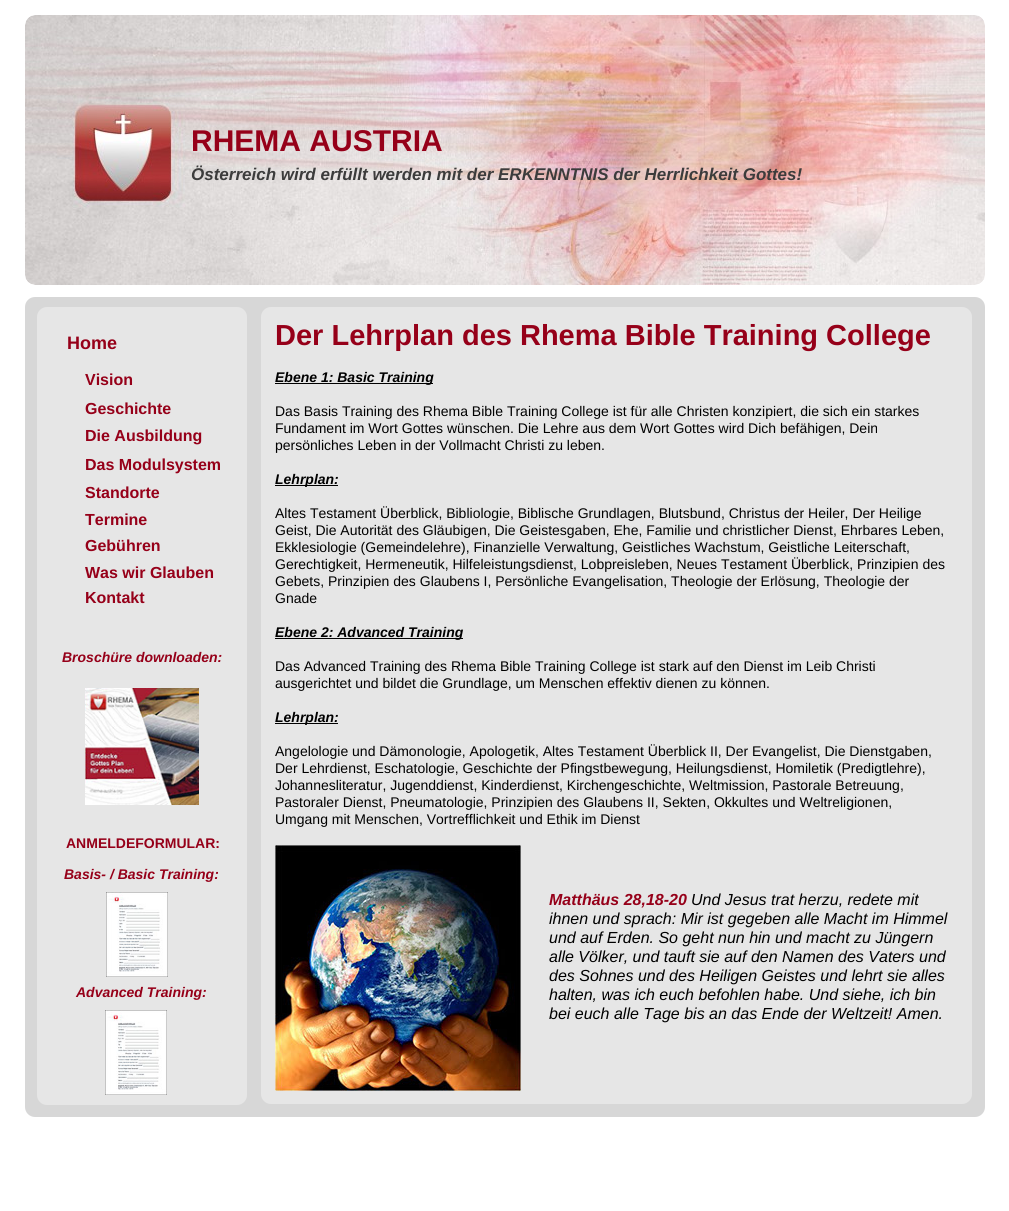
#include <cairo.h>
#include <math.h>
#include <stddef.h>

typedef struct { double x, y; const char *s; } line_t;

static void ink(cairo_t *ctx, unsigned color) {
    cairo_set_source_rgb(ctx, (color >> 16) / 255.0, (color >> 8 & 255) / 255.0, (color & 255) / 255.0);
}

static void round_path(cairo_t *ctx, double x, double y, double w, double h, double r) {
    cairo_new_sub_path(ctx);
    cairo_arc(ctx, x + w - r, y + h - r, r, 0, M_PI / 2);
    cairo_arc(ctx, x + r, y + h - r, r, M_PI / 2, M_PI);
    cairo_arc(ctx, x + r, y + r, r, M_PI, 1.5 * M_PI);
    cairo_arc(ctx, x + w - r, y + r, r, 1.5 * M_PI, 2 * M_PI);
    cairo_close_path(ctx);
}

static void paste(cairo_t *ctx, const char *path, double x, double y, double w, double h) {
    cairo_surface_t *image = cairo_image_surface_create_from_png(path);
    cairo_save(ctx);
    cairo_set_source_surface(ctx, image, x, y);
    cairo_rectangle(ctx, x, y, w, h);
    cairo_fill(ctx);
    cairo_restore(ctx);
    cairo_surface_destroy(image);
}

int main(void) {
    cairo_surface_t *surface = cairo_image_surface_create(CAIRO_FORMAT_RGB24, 1009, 1211);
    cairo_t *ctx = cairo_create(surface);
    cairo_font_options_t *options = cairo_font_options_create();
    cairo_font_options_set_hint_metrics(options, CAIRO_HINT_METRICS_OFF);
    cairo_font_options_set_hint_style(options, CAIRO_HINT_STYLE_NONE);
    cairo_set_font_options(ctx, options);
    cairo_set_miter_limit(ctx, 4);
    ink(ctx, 0xFFFFFF);
    cairo_paint(ctx);
    paste(ctx, "media/1.png", 25, 15, 960, 270);
    cairo_select_font_face(ctx, "Liberation Sans", CAIRO_FONT_SLANT_NORMAL, CAIRO_FONT_WEIGHT_BOLD);
    cairo_set_font_size(ctx, 30);
    ink(ctx, 0x960019);
    cairo_move_to(ctx, 191, 151);
    cairo_show_text(ctx, "RHEMA AUSTRIA");
    cairo_select_font_face(ctx, "Liberation Sans", CAIRO_FONT_SLANT_ITALIC, CAIRO_FONT_WEIGHT_BOLD);
    cairo_set_font_size(ctx, 17);
    ink(ctx, 0x3C3C3C);
    cairo_move_to(ctx, 191, 180);
    cairo_show_text(ctx, "Österreich wird erfüllt werden mit der ERKENNTNIS der Herrlichkeit Gottes!");
    ink(ctx, 0xD7D7D7);
    round_path(ctx, 25, 297, 960, 820, 10);
    cairo_fill(ctx);
    ink(ctx, 0xE6E6E6);
    round_path(ctx, 37, 307, 210, 798, 10);
    cairo_fill(ctx);
    cairo_select_font_face(ctx, "Liberation Sans", CAIRO_FONT_SLANT_NORMAL, CAIRO_FONT_WEIGHT_BOLD);
    cairo_set_font_size(ctx, 18);
    ink(ctx, 0x960019);
    cairo_move_to(ctx, 67, 349);
    cairo_show_text(ctx, "Home");
    cairo_set_font_size(ctx, 16);
    {
        static const line_t items[] = {
            {85, 385, "Vision"},
            {85, 414, "Geschichte"},
            {85, 441, "Die Ausbildung"},
            {85, 470, "Das Modulsystem"},
            {85, 498, "Standorte"},
            {85, 525, "Termine"},
            {85, 551, "Gebühren"},
            {85, 578, "Was wir Glauben"},
            {85, 603, "Kontakt"},
        };
        for (size_t i = 0; i < sizeof items / sizeof *items; i++) {
            cairo_move_to(ctx, items[i].x, items[i].y);
            cairo_show_text(ctx, items[i].s);
        }
    }
    cairo_select_font_face(ctx, "Liberation Sans", CAIRO_FONT_SLANT_ITALIC, CAIRO_FONT_WEIGHT_BOLD);
    cairo_set_font_size(ctx, 14);
    cairo_move_to(ctx, 62, 662);
    cairo_show_text(ctx, "Broschüre downloaden:");
    paste(ctx, "media/2.png", 85, 688, 114, 117);
    cairo_select_font_face(ctx, "Liberation Sans", CAIRO_FONT_SLANT_NORMAL, CAIRO_FONT_WEIGHT_BOLD);
    cairo_move_to(ctx, 66, 848);
    cairo_show_text(ctx, "ANMELDEFORMULAR:");
    cairo_select_font_face(ctx, "Liberation Sans", CAIRO_FONT_SLANT_ITALIC, CAIRO_FONT_WEIGHT_BOLD);
    cairo_move_to(ctx, 64, 879);
    cairo_show_text(ctx, "Basis- / Basic Training:");
    paste(ctx, "media/3.png", 106, 892, 62, 85);
    cairo_move_to(ctx, 76, 997);
    cairo_show_text(ctx, "Advanced Training:");
    paste(ctx, "media/3.png", 105, 1010, 62, 85);
    ink(ctx, 0xE6E6E6);
    round_path(ctx, 261, 307, 711, 797, 10);
    cairo_fill(ctx);
    cairo_select_font_face(ctx, "Liberation Sans", CAIRO_FONT_SLANT_NORMAL, CAIRO_FONT_WEIGHT_BOLD);
    cairo_set_font_size(ctx, 29);
    ink(ctx, 0x960019);
    cairo_move_to(ctx, 275, 345);
    cairo_show_text(ctx, "Der Lehrplan des Rhema Bible Training College");
    ink(ctx, 0x000000);
    cairo_rectangle(ctx, 275, 383, 158, 1);
    cairo_fill(ctx);
    cairo_select_font_face(ctx, "Liberation Sans", CAIRO_FONT_SLANT_ITALIC, CAIRO_FONT_WEIGHT_BOLD);
    cairo_set_font_size(ctx, 14);
    cairo_move_to(ctx, 275, 382);
    cairo_show_text(ctx, "Ebene 1: Basic Training");
    cairo_select_font_face(ctx, "Liberation Sans", CAIRO_FONT_SLANT_NORMAL, CAIRO_FONT_WEIGHT_NORMAL);
    {
        static const line_t items[] = {
            {275, 416, "Das Basis Training des Rhema Bible Training College ist für alle Christen konzipiert, die sich ein starkes"},
            {275, 433, "Fundament im Wort Gottes wünschen. Die Lehre aus dem Wort Gottes wird Dich befähigen, Dein"},
            {275, 450, "persönliches Leben in der Vollmacht Christi zu leben."},
        };
        for (size_t i = 0; i < sizeof items / sizeof *items; i++) {
            cairo_move_to(ctx, items[i].x, items[i].y);
            cairo_show_text(ctx, items[i].s);
        }
    }
    cairo_rectangle(ctx, 275, 485, 63, 1);
    cairo_fill(ctx);
    cairo_select_font_face(ctx, "Liberation Sans", CAIRO_FONT_SLANT_ITALIC, CAIRO_FONT_WEIGHT_BOLD);
    cairo_move_to(ctx, 275, 484);
    cairo_show_text(ctx, "Lehrplan:");
    cairo_select_font_face(ctx, "Liberation Sans", CAIRO_FONT_SLANT_NORMAL, CAIRO_FONT_WEIGHT_NORMAL);
    {
        static const line_t items[] = {
            {275, 518, "Altes Testament Überblick, Bibliologie, Biblische Grundlagen, Blutsbund, Christus der Heiler, Der Heilige"},
            {275, 535, "Geist, Die Autorität des Gläubigen, Die Geistesgaben, Ehe, Familie und christlicher Dienst, Ehrbares Leben,"},
            {275, 552, "Ekklesiologie (Gemeindelehre), Finanzielle Verwaltung, Geistliches Wachstum, Geistliche Leiterschaft,"},
            {275, 569, "Gerechtigkeit, Hermeneutik, Hilfeleistungsdienst, Lobpreisleben, Neues Testament Überblick, Prinzipien des"},
            {275, 586, "Gebets, Prinzipien des Glaubens I, Persönliche Evangelisation, Theologie der Erlösung, Theologie der"},
            {275, 603, "Gnade"},
        };
        for (size_t i = 0; i < sizeof items / sizeof *items; i++) {
            cairo_move_to(ctx, items[i].x, items[i].y);
            cairo_show_text(ctx, items[i].s);
        }
    }
    cairo_rectangle(ctx, 275, 638, 188, 1);
    cairo_fill(ctx);
    cairo_select_font_face(ctx, "Liberation Sans", CAIRO_FONT_SLANT_ITALIC, CAIRO_FONT_WEIGHT_BOLD);
    cairo_move_to(ctx, 275, 637);
    cairo_show_text(ctx, "Ebene 2: Advanced Training");
    cairo_select_font_face(ctx, "Liberation Sans", CAIRO_FONT_SLANT_NORMAL, CAIRO_FONT_WEIGHT_NORMAL);
    cairo_move_to(ctx, 275, 671);
    cairo_show_text(ctx, "Das Advanced Training des Rhema Bible Training College ist stark auf den Dienst im Leib Christi");
    cairo_move_to(ctx, 275, 688);
    cairo_show_text(ctx, "ausgerichtet und bildet die Grundlage, um Menschen effektiv dienen zu können.");
    cairo_rectangle(ctx, 275, 723, 63, 1);
    cairo_fill(ctx);
    cairo_select_font_face(ctx, "Liberation Sans", CAIRO_FONT_SLANT_ITALIC, CAIRO_FONT_WEIGHT_BOLD);
    cairo_move_to(ctx, 275, 722);
    cairo_show_text(ctx, "Lehrplan:");
    cairo_select_font_face(ctx, "Liberation Sans", CAIRO_FONT_SLANT_NORMAL, CAIRO_FONT_WEIGHT_NORMAL);
    {
        static const line_t items[] = {
            {275, 756, "Angelologie und Dämonologie, Apologetik, Altes Testament Überblick II, Der Evangelist, Die Dienstgaben,"},
            {275, 773, "Der Lehrdienst, Eschatologie, Geschichte der Pfingstbewegung, Heilungsdienst, Homiletik (Predigtlehre),"},
            {275, 790, "Johannesliteratur, Jugenddienst, Kinderdienst, Kirchengeschichte, Weltmission, Pastorale Betreuung,"},
            {275, 807, "Pastoraler Dienst, Pneumatologie, Prinzipien des Glaubens II, Sekten, Okkultes und Weltreligionen,"},
            {275, 824, "Umgang mit Menschen, Vortrefflichkeit und Ethik im Dienst"},
        };
        for (size_t i = 0; i < sizeof items / sizeof *items; i++) {
            cairo_move_to(ctx, items[i].x, items[i].y);
            cairo_show_text(ctx, items[i].s);
        }
    }
    paste(ctx, "media/4.png", 275, 845, 246, 246);
    cairo_select_font_face(ctx, "Liberation Sans", CAIRO_FONT_SLANT_ITALIC, CAIRO_FONT_WEIGHT_BOLD);
    cairo_set_font_size(ctx, 16);
    ink(ctx, 0x960019);
    cairo_move_to(ctx, 549, 905);
    cairo_show_text(ctx, "Matthäus 28,18-20");
    cairo_select_font_face(ctx, "Liberation Sans", CAIRO_FONT_SLANT_ITALIC, CAIRO_FONT_WEIGHT_NORMAL);
    ink(ctx, 0x000000);
    {
        static const line_t items[] = {
            {691, 905, "Und Jesus trat herzu, redete mit"},
            {549, 924, "ihnen und sprach: Mir ist gegeben alle Macht im Himmel"},
            {549, 943, "und auf Erden. So geht nun hin und macht zu Jüngern"},
            {549, 962, "alle Völker, und tauft sie auf den Namen des Vaters und"},
            {549, 981, "des Sohnes und des Heiligen Geistes und lehrt sie alles"},
            {549, 1000, "halten, was ich euch befohlen habe. Und siehe, ich bin"},
            {549, 1019, "bei euch alle Tage bis an das Ende der Weltzeit! Amen."},
        };
        for (size_t i = 0; i < sizeof items / sizeof *items; i++) {
            cairo_move_to(ctx, items[i].x, items[i].y);
            cairo_show_text(ctx, items[i].s);
        }
    }
    cairo_surface_write_to_png(surface, "image.png");
    cairo_font_options_destroy(options);
    cairo_destroy(ctx);
    cairo_surface_destroy(surface);
    return 0;
}
